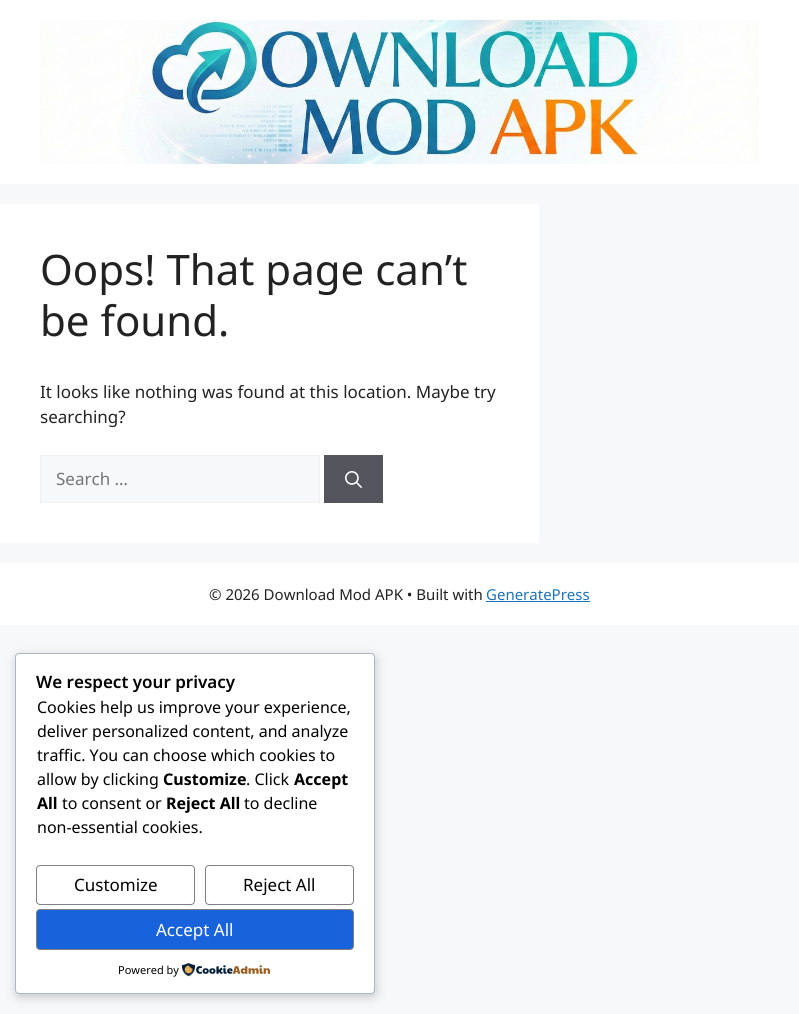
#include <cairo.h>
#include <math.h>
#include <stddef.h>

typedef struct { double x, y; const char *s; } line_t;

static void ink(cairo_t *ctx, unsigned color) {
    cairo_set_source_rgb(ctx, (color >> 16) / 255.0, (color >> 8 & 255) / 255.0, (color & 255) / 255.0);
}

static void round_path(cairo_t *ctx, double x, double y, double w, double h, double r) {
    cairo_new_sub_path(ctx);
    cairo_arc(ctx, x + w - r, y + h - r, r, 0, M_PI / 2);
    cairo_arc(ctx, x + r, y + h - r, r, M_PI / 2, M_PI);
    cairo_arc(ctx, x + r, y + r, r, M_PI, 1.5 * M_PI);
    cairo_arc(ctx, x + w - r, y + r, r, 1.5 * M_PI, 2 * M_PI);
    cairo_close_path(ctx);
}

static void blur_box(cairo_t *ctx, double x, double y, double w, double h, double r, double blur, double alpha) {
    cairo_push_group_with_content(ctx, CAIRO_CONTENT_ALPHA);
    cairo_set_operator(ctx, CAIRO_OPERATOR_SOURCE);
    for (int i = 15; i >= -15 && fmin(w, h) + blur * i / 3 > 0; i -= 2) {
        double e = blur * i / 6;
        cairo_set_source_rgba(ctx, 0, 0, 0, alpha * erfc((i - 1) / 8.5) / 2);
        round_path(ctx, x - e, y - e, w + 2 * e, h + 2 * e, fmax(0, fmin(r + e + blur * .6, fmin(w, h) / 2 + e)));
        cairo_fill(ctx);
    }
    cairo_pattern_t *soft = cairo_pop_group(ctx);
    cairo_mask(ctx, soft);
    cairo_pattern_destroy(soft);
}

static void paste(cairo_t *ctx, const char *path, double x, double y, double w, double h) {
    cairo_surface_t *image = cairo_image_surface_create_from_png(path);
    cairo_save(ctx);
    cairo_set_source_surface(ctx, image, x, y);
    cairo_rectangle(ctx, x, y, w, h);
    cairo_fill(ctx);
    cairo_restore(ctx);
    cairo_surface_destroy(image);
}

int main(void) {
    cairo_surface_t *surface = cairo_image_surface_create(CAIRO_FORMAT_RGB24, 799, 1014);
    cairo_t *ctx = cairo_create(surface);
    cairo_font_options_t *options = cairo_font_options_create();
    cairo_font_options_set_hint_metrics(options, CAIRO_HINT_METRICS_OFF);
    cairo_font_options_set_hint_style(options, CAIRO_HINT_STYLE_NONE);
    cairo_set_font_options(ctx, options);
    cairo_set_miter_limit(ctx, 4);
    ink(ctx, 0xF7F8F9);
    cairo_paint(ctx);
    ink(ctx, 0xFFFFFF);
    cairo_rectangle(ctx, 0, 0, 799, 184);
    cairo_fill(ctx);
    paste(ctx, "media/1.png", 40, 20, 719, 144);
    cairo_rectangle(ctx, 0, 204, 539, 339);
    cairo_fill(ctx);
    cairo_select_font_face(ctx, "Noto Sans", CAIRO_FONT_SLANT_NORMAL, CAIRO_FONT_WEIGHT_NORMAL);
    cairo_set_font_size(ctx, 42);
    ink(ctx, 0x222222);
    cairo_move_to(ctx, 40, 285);
    cairo_show_text(ctx, "Oops! That page can’t");
    cairo_move_to(ctx, 40, 336);
    cairo_show_text(ctx, "be found.");
    cairo_set_font_size(ctx, 17);
    cairo_move_to(ctx, 40, 398);
    cairo_show_text(ctx, "It looks like nothing was found at this location. Maybe try");
    cairo_move_to(ctx, 40, 423);
    cairo_show_text(ctx, "searching?");
    ink(ctx, 0xF7F8F9);
    cairo_rectangle(ctx, 40.5, 455.5, 279, 47);
    cairo_fill_preserve(ctx);
    ink(ctx, 0xF0F0F0);
    cairo_set_line_width(ctx, 1);
    cairo_stroke(ctx);
    ink(ctx, 0x757575);
    cairo_move_to(ctx, 56, 485);
    cairo_show_text(ctx, "Search …");
    ink(ctx, 0x55555E);
    cairo_rectangle(ctx, 324, 455, 59, 48);
    cairo_fill(ctx);
    paste(ctx, "media/2.png", 345, 471, 17, 17);
    ink(ctx, 0xFFFFFF);
    cairo_rectangle(ctx, 0, 563, 799, 62);
    cairo_fill(ctx);
    cairo_set_font_size(ctx, 15);
    ink(ctx, 0x222222);
    cairo_move_to(ctx, 209, 600);
    cairo_show_text(ctx, "© 2026 Download Mod APK • Built with");
    ink(ctx, 0x1E73BE);
    cairo_move_to(ctx, 486, 600);
    cairo_show_text(ctx, "GeneratePress");
    cairo_rectangle(ctx, 486, 601, 104, 1);
    cairo_fill(ctx);
    ink(ctx, 0x000000);
    blur_box(ctx, 16, 656, 360, 341, 4, 5, 0.2);
    ink(ctx, 0xFFFFFF);
    round_path(ctx, 15.5, 653.5, 359, 340, 3.5);
    cairo_fill_preserve(ctx);
    ink(ctx, 0xABB8C3);
    cairo_stroke(ctx);
    cairo_select_font_face(ctx, "Noto Sans SemiBold", CAIRO_FONT_SLANT_NORMAL, CAIRO_FONT_WEIGHT_NORMAL);
    cairo_set_font_size(ctx, 17);
    ink(ctx, 0x000000);
    cairo_move_to(ctx, 36, 688);
    cairo_show_text(ctx, "We respect your privacy");
    cairo_select_font_face(ctx, "Noto Sans", CAIRO_FONT_SLANT_NORMAL, CAIRO_FONT_WEIGHT_NORMAL);
    cairo_set_font_size(ctx, 16);
    {
        static const line_t items[] = {
            {37, 713, "Cookies help us improve your experience,"},
            {37, 737, "deliver personalized content, and analyze"},
            {37, 761, "traffic. You can choose which cookies to"},
            {37, 785, "allow by clicking"},
        };
        for (size_t i = 0; i < sizeof items / sizeof *items; i++) {
            cairo_move_to(ctx, items[i].x, items[i].y);
            cairo_show_text(ctx, items[i].s);
        }
    }
    cairo_select_font_face(ctx, "Noto Sans", CAIRO_FONT_SLANT_NORMAL, CAIRO_FONT_WEIGHT_BOLD);
    cairo_move_to(ctx, 163, 785);
    cairo_show_text(ctx, "Customize");
    cairo_select_font_face(ctx, "Noto Sans", CAIRO_FONT_SLANT_NORMAL, CAIRO_FONT_WEIGHT_NORMAL);
    cairo_move_to(ctx, 246, 785);
    cairo_show_text(ctx, ". Click");
    cairo_select_font_face(ctx, "Noto Sans", CAIRO_FONT_SLANT_NORMAL, CAIRO_FONT_WEIGHT_BOLD);
    cairo_move_to(ctx, 294, 785);
    cairo_show_text(ctx, "Accept");
    cairo_move_to(ctx, 37, 809);
    cairo_show_text(ctx, "All");
    cairo_select_font_face(ctx, "Noto Sans", CAIRO_FONT_SLANT_NORMAL, CAIRO_FONT_WEIGHT_NORMAL);
    cairo_move_to(ctx, 62, 809);
    cairo_show_text(ctx, "to consent or");
    cairo_select_font_face(ctx, "Noto Sans", CAIRO_FONT_SLANT_NORMAL, CAIRO_FONT_WEIGHT_BOLD);
    cairo_move_to(ctx, 166, 809);
    cairo_show_text(ctx, "Reject All");
    cairo_select_font_face(ctx, "Noto Sans", CAIRO_FONT_SLANT_NORMAL, CAIRO_FONT_WEIGHT_NORMAL);
    cairo_move_to(ctx, 244, 809);
    cairo_show_text(ctx, "to decline");
    cairo_move_to(ctx, 37, 833);
    cairo_show_text(ctx, "non-essential cookies.");
    round_path(ctx, 36.5, 865.5, 158, 39, 3.5);
    ink(ctx, 0x808080);
    cairo_stroke(ctx);
    cairo_set_font_size(ctx, 17);
    ink(ctx, 0x000000);
    cairo_move_to(ctx, 74, 891);
    cairo_show_text(ctx, "Customize");
    round_path(ctx, 205.5, 865.5, 148, 39, 3.5);
    ink(ctx, 0x808080);
    cairo_stroke(ctx);
    ink(ctx, 0x000000);
    cairo_move_to(ctx, 243, 891);
    cairo_show_text(ctx, "Reject All");
    ink(ctx, 0x1863DC);
    round_path(ctx, 36.5, 909.5, 317, 40, 3.5);
    cairo_fill_preserve(ctx);
    ink(ctx, 0x808080);
    cairo_stroke(ctx);
    ink(ctx, 0xFFFFFF);
    cairo_move_to(ctx, 156, 936);
    cairo_show_text(ctx, "Accept All");
    cairo_set_font_size(ctx, 11);
    ink(ctx, 0x000000);
    cairo_move_to(ctx, 118, 974);
    cairo_show_text(ctx, "Powered by");
    paste(ctx, "media/3.png", 182, 963, 88, 14);
    cairo_surface_write_to_png(surface, "image.png");
    cairo_font_options_destroy(options);
    cairo_destroy(ctx);
    cairo_surface_destroy(surface);
    return 0;
}
